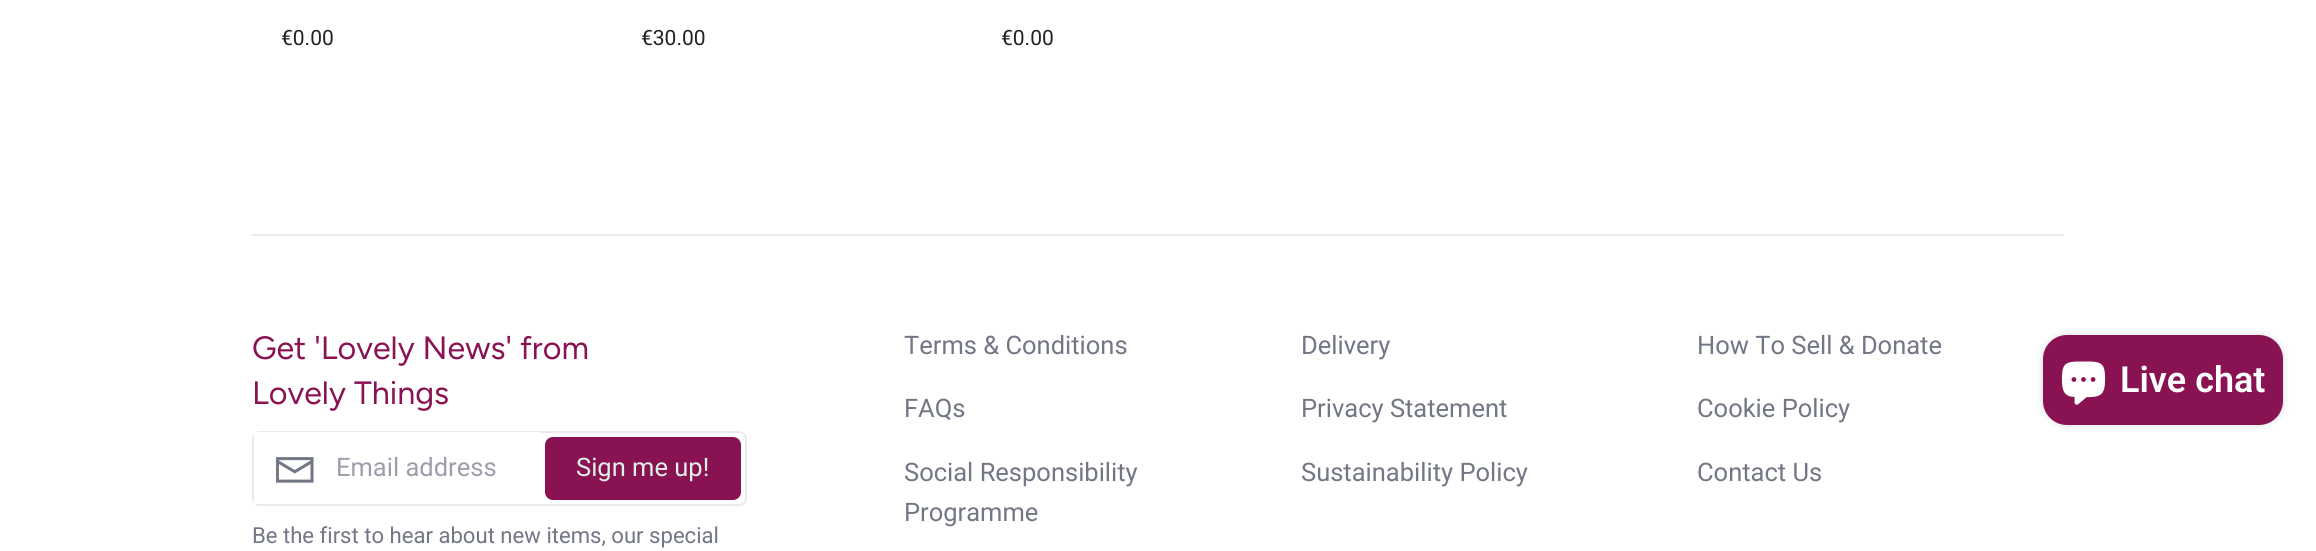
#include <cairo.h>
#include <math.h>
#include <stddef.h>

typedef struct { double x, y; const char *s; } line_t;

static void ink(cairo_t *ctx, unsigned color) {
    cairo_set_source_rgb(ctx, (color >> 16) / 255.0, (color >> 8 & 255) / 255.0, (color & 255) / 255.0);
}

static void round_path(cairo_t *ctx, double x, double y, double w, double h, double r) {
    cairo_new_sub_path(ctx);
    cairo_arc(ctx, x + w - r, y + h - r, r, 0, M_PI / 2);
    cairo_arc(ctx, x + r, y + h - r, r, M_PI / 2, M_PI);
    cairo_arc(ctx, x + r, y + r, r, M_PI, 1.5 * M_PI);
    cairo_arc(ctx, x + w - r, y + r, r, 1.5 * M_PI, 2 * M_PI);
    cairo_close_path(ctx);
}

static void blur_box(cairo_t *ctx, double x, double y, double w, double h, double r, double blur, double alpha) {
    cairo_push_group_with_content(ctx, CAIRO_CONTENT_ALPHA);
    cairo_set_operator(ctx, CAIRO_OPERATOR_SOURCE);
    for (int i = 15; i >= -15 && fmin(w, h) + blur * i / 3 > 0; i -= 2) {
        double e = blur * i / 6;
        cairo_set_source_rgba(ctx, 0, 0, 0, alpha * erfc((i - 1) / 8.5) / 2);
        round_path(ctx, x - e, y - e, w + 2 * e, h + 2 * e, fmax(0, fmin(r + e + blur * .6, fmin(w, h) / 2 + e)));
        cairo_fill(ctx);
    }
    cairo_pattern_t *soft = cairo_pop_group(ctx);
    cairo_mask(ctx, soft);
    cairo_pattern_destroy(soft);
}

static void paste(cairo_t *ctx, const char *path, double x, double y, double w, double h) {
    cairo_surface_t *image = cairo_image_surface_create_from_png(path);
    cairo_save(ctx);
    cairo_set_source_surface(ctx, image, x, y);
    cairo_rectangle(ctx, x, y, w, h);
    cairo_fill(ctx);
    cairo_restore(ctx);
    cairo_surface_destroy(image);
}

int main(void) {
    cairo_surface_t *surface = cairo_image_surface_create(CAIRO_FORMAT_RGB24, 2316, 551);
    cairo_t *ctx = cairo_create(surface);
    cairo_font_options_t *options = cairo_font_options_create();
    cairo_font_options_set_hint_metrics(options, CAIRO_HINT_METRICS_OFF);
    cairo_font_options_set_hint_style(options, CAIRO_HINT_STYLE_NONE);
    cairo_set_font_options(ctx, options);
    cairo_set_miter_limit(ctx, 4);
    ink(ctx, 0xFFFFFF);
    cairo_paint(ctx);
    cairo_select_font_face(ctx, "Roboto", CAIRO_FONT_SLANT_NORMAL, CAIRO_FONT_WEIGHT_NORMAL);
    cairo_set_font_size(ctx, 21);
    ink(ctx, 0x222222);
    {
        static const line_t items[] = {
            {281, 45, "€0.00"},
            {641, 45, "€30.00"},
            {1001, 45, "€0.00"},
        };
        for (size_t i = 0; i < sizeof items / sizeof *items; i++) {
            cairo_move_to(ctx, items[i].x, items[i].y);
            cairo_show_text(ctx, items[i].s);
        }
    }
    ink(ctx, 0xEAEAED);
    cairo_rectangle(ctx, 252, 234, 1812, 2);
    cairo_fill(ctx);
    cairo_select_font_face(ctx, "Figtree", CAIRO_FONT_SLANT_NORMAL, CAIRO_FONT_WEIGHT_NORMAL);
    cairo_set_font_size(ctx, 32.25);
    ink(ctx, 0x891252);
    cairo_move_to(ctx, 252, 359);
    cairo_show_text(ctx, "Get 'Lovely News' from");
    cairo_move_to(ctx, 252, 404);
    cairo_show_text(ctx, "Lovely Things");
    round_path(ctx, 253, 432, 493, 73, 7);
    ink(ctx, 0xEAEAED);
    cairo_stroke(ctx);
    ink(ctx, 0xFFFFFF);
    cairo_rectangle(ctx, 254, 432, 286, 72);
    cairo_fill(ctx);
    paste(ctx, "media/1.png", 276, 457, 38, 26);
    cairo_select_font_face(ctx, "Roboto", CAIRO_FONT_SLANT_NORMAL, CAIRO_FONT_WEIGHT_NORMAL);
    cairo_set_font_size(ctx, 25.5);
    ink(ctx, 0x9C9FAA);
    cairo_move_to(ctx, 336, 476);
    cairo_show_text(ctx, "Email address");
    ink(ctx, 0x891252);
    round_path(ctx, 546, 438, 194, 61, 7);
    cairo_fill_preserve(ctx);
    cairo_stroke(ctx);
    ink(ctx, 0xE0F2E8);
    cairo_move_to(ctx, 576, 476);
    cairo_show_text(ctx, "Sign me up!");
    cairo_set_font_size(ctx, 22.1);
    ink(ctx, 0x727685);
    cairo_move_to(ctx, 252, 543);
    cairo_show_text(ctx, "Be the first to hear about new items, our special");
    cairo_set_font_size(ctx, 25.5);
    {
        static const line_t items[] = {
            {904, 354, "Terms & Conditions"},
            {1301, 354, "Delivery"},
            {1697, 354, "How To Sell & Donate"},
            {904, 417, "FAQs"},
            {1301, 417, "Privacy Statement"},
            {1697, 417, "Cookie Policy"},
            {904, 481, "Social Responsibility"},
            {904, 521, "Programme"},
            {1301, 481, "Sustainability Policy"},
            {1697, 481, "Contact Us"},
        };
        for (size_t i = 0; i < sizeof items / sizeof *items; i++) {
            cairo_move_to(ctx, items[i].x, items[i].y);
            cairo_show_text(ctx, items[i].s);
        }
    }
    ink(ctx, 0x000000);
    blur_box(ctx, 2043, 335, 240, 90, 24, 4, 0.15);
    ink(ctx, 0x891252);
    round_path(ctx, 2043, 335, 240, 90, 24);
    cairo_fill(ctx);
    paste(ctx, "media/2.png", 2061, 361, 45, 44);
    cairo_select_font_face(ctx, "Roboto SemiBold", CAIRO_FONT_SLANT_NORMAL, CAIRO_FONT_WEIGHT_NORMAL);
    cairo_set_font_size(ctx, 36);
    ink(ctx, 0xFFFFFF);
    cairo_move_to(ctx, 2120, 392);
    cairo_show_text(ctx, "Live chat");
    cairo_surface_write_to_png(surface, "image.png");
    cairo_font_options_destroy(options);
    cairo_destroy(ctx);
    cairo_surface_destroy(surface);
    return 0;
}
